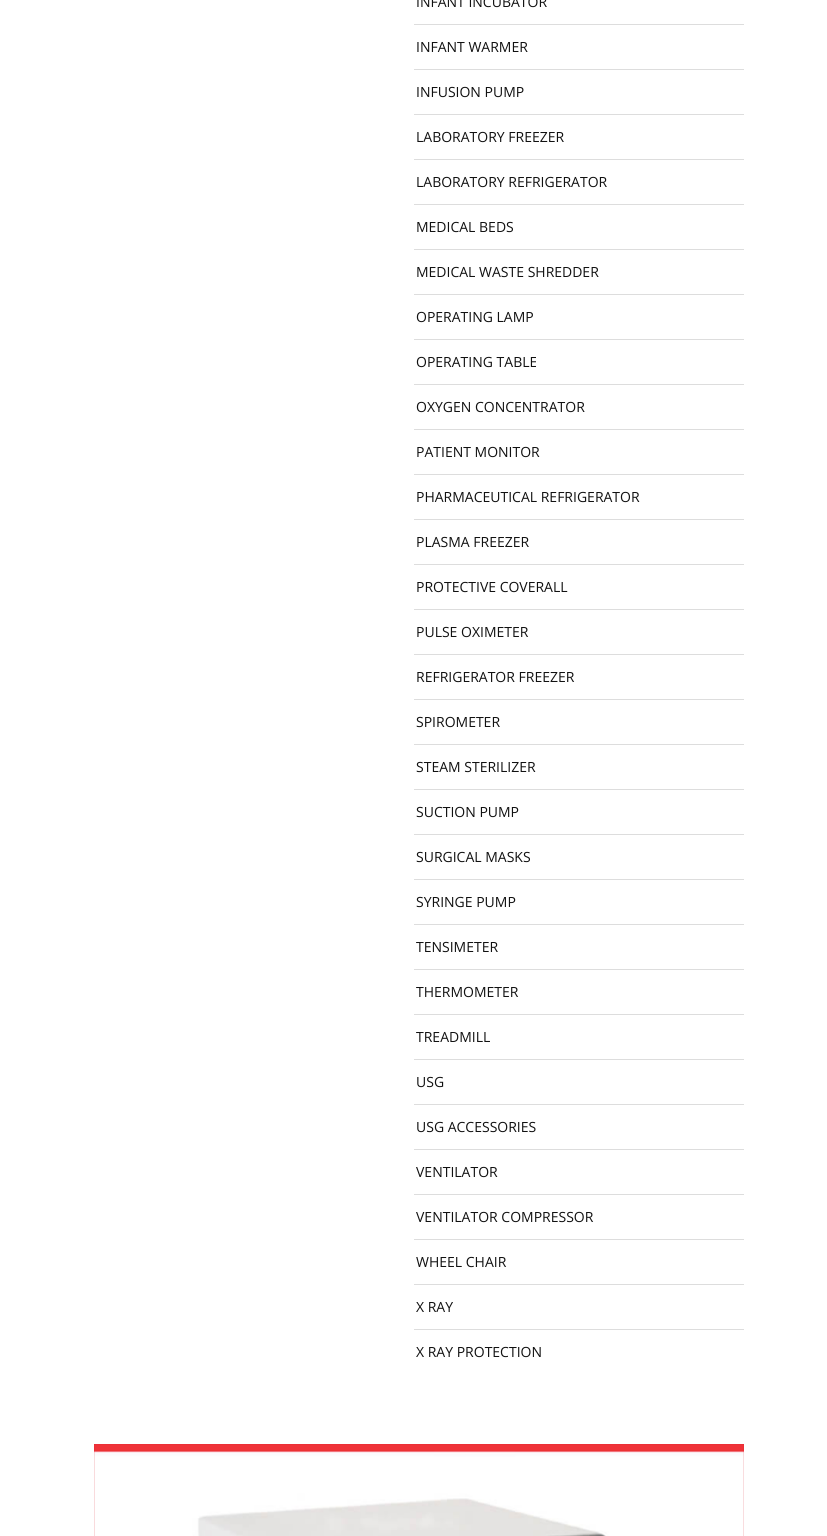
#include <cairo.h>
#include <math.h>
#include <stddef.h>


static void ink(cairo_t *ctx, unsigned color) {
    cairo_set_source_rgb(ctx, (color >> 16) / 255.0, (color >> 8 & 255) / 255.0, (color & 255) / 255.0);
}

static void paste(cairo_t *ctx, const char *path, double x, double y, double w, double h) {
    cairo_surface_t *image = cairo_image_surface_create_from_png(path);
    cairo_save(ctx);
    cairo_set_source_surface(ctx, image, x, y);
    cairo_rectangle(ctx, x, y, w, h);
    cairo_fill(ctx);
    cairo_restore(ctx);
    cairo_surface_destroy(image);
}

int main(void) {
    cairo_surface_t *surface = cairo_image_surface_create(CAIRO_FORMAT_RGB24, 827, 1536);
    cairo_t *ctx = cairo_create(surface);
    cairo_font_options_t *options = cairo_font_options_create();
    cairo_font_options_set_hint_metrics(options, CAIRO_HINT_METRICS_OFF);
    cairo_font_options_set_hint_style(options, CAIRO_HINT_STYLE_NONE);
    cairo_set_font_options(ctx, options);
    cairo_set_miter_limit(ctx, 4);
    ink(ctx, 0xFFFFFF);
    cairo_paint(ctx);
    ink(ctx, 0xDDDDDD);
    cairo_rectangle(ctx, 414, 24, 330, 1);
    cairo_fill(ctx);
    cairo_select_font_face(ctx, "Open Sans", CAIRO_FONT_SLANT_NORMAL, CAIRO_FONT_WEIGHT_NORMAL);
    cairo_set_font_size(ctx, 14);
    ink(ctx, 0x111111);
    cairo_move_to(ctx, 416, 7);
    cairo_show_text(ctx, "INFANT INCUBATOR");
    ink(ctx, 0xDDDDDD);
    cairo_rectangle(ctx, 414, 69, 330, 1);
    cairo_fill(ctx);
    ink(ctx, 0x111111);
    cairo_move_to(ctx, 416, 52);
    cairo_show_text(ctx, "INFANT WARMER");
    ink(ctx, 0xDDDDDD);
    cairo_rectangle(ctx, 414, 114, 330, 1);
    cairo_fill(ctx);
    ink(ctx, 0x111111);
    cairo_move_to(ctx, 416, 97);
    cairo_show_text(ctx, "INFUSION PUMP");
    ink(ctx, 0xDDDDDD);
    cairo_rectangle(ctx, 414, 159, 330, 1);
    cairo_fill(ctx);
    ink(ctx, 0x111111);
    cairo_move_to(ctx, 416, 142);
    cairo_show_text(ctx, "LABORATORY FREEZER");
    ink(ctx, 0xDDDDDD);
    cairo_rectangle(ctx, 414, 204, 330, 1);
    cairo_fill(ctx);
    ink(ctx, 0x111111);
    cairo_move_to(ctx, 416, 187);
    cairo_show_text(ctx, "LABORATORY REFRIGERATOR");
    ink(ctx, 0xDDDDDD);
    cairo_rectangle(ctx, 414, 249, 330, 1);
    cairo_fill(ctx);
    ink(ctx, 0x111111);
    cairo_move_to(ctx, 416, 232);
    cairo_show_text(ctx, "MEDICAL BEDS");
    ink(ctx, 0xDDDDDD);
    cairo_rectangle(ctx, 414, 294, 330, 1);
    cairo_fill(ctx);
    ink(ctx, 0x111111);
    cairo_move_to(ctx, 416, 277);
    cairo_show_text(ctx, "MEDICAL WASTE SHREDDER");
    ink(ctx, 0xDDDDDD);
    cairo_rectangle(ctx, 414, 339, 330, 1);
    cairo_fill(ctx);
    ink(ctx, 0x111111);
    cairo_move_to(ctx, 416, 322);
    cairo_show_text(ctx, "OPERATING LAMP");
    ink(ctx, 0xDDDDDD);
    cairo_rectangle(ctx, 414, 384, 330, 1);
    cairo_fill(ctx);
    ink(ctx, 0x111111);
    cairo_move_to(ctx, 416, 367);
    cairo_show_text(ctx, "OPERATING TABLE");
    ink(ctx, 0xDDDDDD);
    cairo_rectangle(ctx, 414, 429, 330, 1);
    cairo_fill(ctx);
    ink(ctx, 0x111111);
    cairo_move_to(ctx, 416, 412);
    cairo_show_text(ctx, "OXYGEN CONCENTRATOR");
    ink(ctx, 0xDDDDDD);
    cairo_rectangle(ctx, 414, 474, 330, 1);
    cairo_fill(ctx);
    ink(ctx, 0x111111);
    cairo_move_to(ctx, 416, 457);
    cairo_show_text(ctx, "PATIENT MONITOR");
    ink(ctx, 0xDDDDDD);
    cairo_rectangle(ctx, 414, 519, 330, 1);
    cairo_fill(ctx);
    ink(ctx, 0x111111);
    cairo_move_to(ctx, 416, 502);
    cairo_show_text(ctx, "PHARMACEUTICAL REFRIGERATOR");
    ink(ctx, 0xDDDDDD);
    cairo_rectangle(ctx, 414, 564, 330, 1);
    cairo_fill(ctx);
    ink(ctx, 0x111111);
    cairo_move_to(ctx, 416, 547);
    cairo_show_text(ctx, "PLASMA FREEZER");
    ink(ctx, 0xDDDDDD);
    cairo_rectangle(ctx, 414, 609, 330, 1);
    cairo_fill(ctx);
    ink(ctx, 0x111111);
    cairo_move_to(ctx, 416, 592);
    cairo_show_text(ctx, "PROTECTIVE COVERALL");
    ink(ctx, 0xDDDDDD);
    cairo_rectangle(ctx, 414, 654, 330, 1);
    cairo_fill(ctx);
    ink(ctx, 0x111111);
    cairo_move_to(ctx, 416, 637);
    cairo_show_text(ctx, "PULSE OXIMETER");
    ink(ctx, 0xDDDDDD);
    cairo_rectangle(ctx, 414, 699, 330, 1);
    cairo_fill(ctx);
    ink(ctx, 0x111111);
    cairo_move_to(ctx, 416, 682);
    cairo_show_text(ctx, "REFRIGERATOR FREEZER");
    ink(ctx, 0xDDDDDD);
    cairo_rectangle(ctx, 414, 744, 330, 1);
    cairo_fill(ctx);
    ink(ctx, 0x111111);
    cairo_move_to(ctx, 416, 727);
    cairo_show_text(ctx, "SPIROMETER");
    ink(ctx, 0xDDDDDD);
    cairo_rectangle(ctx, 414, 789, 330, 1);
    cairo_fill(ctx);
    ink(ctx, 0x111111);
    cairo_move_to(ctx, 416, 772);
    cairo_show_text(ctx, "STEAM STERILIZER");
    ink(ctx, 0xDDDDDD);
    cairo_rectangle(ctx, 414, 834, 330, 1);
    cairo_fill(ctx);
    ink(ctx, 0x111111);
    cairo_move_to(ctx, 416, 817);
    cairo_show_text(ctx, "SUCTION PUMP");
    ink(ctx, 0xDDDDDD);
    cairo_rectangle(ctx, 414, 879, 330, 1);
    cairo_fill(ctx);
    ink(ctx, 0x111111);
    cairo_move_to(ctx, 416, 862);
    cairo_show_text(ctx, "SURGICAL MASKS");
    ink(ctx, 0xDDDDDD);
    cairo_rectangle(ctx, 414, 924, 330, 1);
    cairo_fill(ctx);
    ink(ctx, 0x111111);
    cairo_move_to(ctx, 416, 907);
    cairo_show_text(ctx, "SYRINGE PUMP");
    ink(ctx, 0xDDDDDD);
    cairo_rectangle(ctx, 414, 969, 330, 1);
    cairo_fill(ctx);
    ink(ctx, 0x111111);
    cairo_move_to(ctx, 416, 952);
    cairo_show_text(ctx, "TENSIMETER");
    ink(ctx, 0xDDDDDD);
    cairo_rectangle(ctx, 414, 1014, 330, 1);
    cairo_fill(ctx);
    ink(ctx, 0x111111);
    cairo_move_to(ctx, 416, 997);
    cairo_show_text(ctx, "THERMOMETER");
    ink(ctx, 0xDDDDDD);
    cairo_rectangle(ctx, 414, 1059, 330, 1);
    cairo_fill(ctx);
    ink(ctx, 0x111111);
    cairo_move_to(ctx, 416, 1042);
    cairo_show_text(ctx, "TREADMILL");
    ink(ctx, 0xDDDDDD);
    cairo_rectangle(ctx, 414, 1104, 330, 1);
    cairo_fill(ctx);
    ink(ctx, 0x111111);
    cairo_move_to(ctx, 416, 1087);
    cairo_show_text(ctx, "USG");
    ink(ctx, 0xDDDDDD);
    cairo_rectangle(ctx, 414, 1149, 330, 1);
    cairo_fill(ctx);
    ink(ctx, 0x111111);
    cairo_move_to(ctx, 416, 1132);
    cairo_show_text(ctx, "USG ACCESSORIES");
    ink(ctx, 0xDDDDDD);
    cairo_rectangle(ctx, 414, 1194, 330, 1);
    cairo_fill(ctx);
    ink(ctx, 0x111111);
    cairo_move_to(ctx, 416, 1177);
    cairo_show_text(ctx, "VENTILATOR");
    ink(ctx, 0xDDDDDD);
    cairo_rectangle(ctx, 414, 1239, 330, 1);
    cairo_fill(ctx);
    ink(ctx, 0x111111);
    cairo_move_to(ctx, 416, 1222);
    cairo_show_text(ctx, "VENTILATOR COMPRESSOR");
    ink(ctx, 0xDDDDDD);
    cairo_rectangle(ctx, 414, 1284, 330, 1);
    cairo_fill(ctx);
    ink(ctx, 0x111111);
    cairo_move_to(ctx, 416, 1267);
    cairo_show_text(ctx, "WHEEL CHAIR");
    ink(ctx, 0xDDDDDD);
    cairo_rectangle(ctx, 414, 1329, 330, 1);
    cairo_fill(ctx);
    ink(ctx, 0x111111);
    cairo_move_to(ctx, 416, 1312);
    cairo_show_text(ctx, "X RAY");
    cairo_move_to(ctx, 416, 1357);
    cairo_show_text(ctx, "X RAY PROTECTION");
    ink(ctx, 0xD82731);
    cairo_rectangle(ctx, 94, 1444, 650, 92);
    cairo_fill(ctx);
    paste(ctx, "media/1.png", 94, 1444, 650, 92);
    cairo_surface_write_to_png(surface, "image.png");
    cairo_font_options_destroy(options);
    cairo_destroy(ctx);
    cairo_surface_destroy(surface);
    return 0;
}
